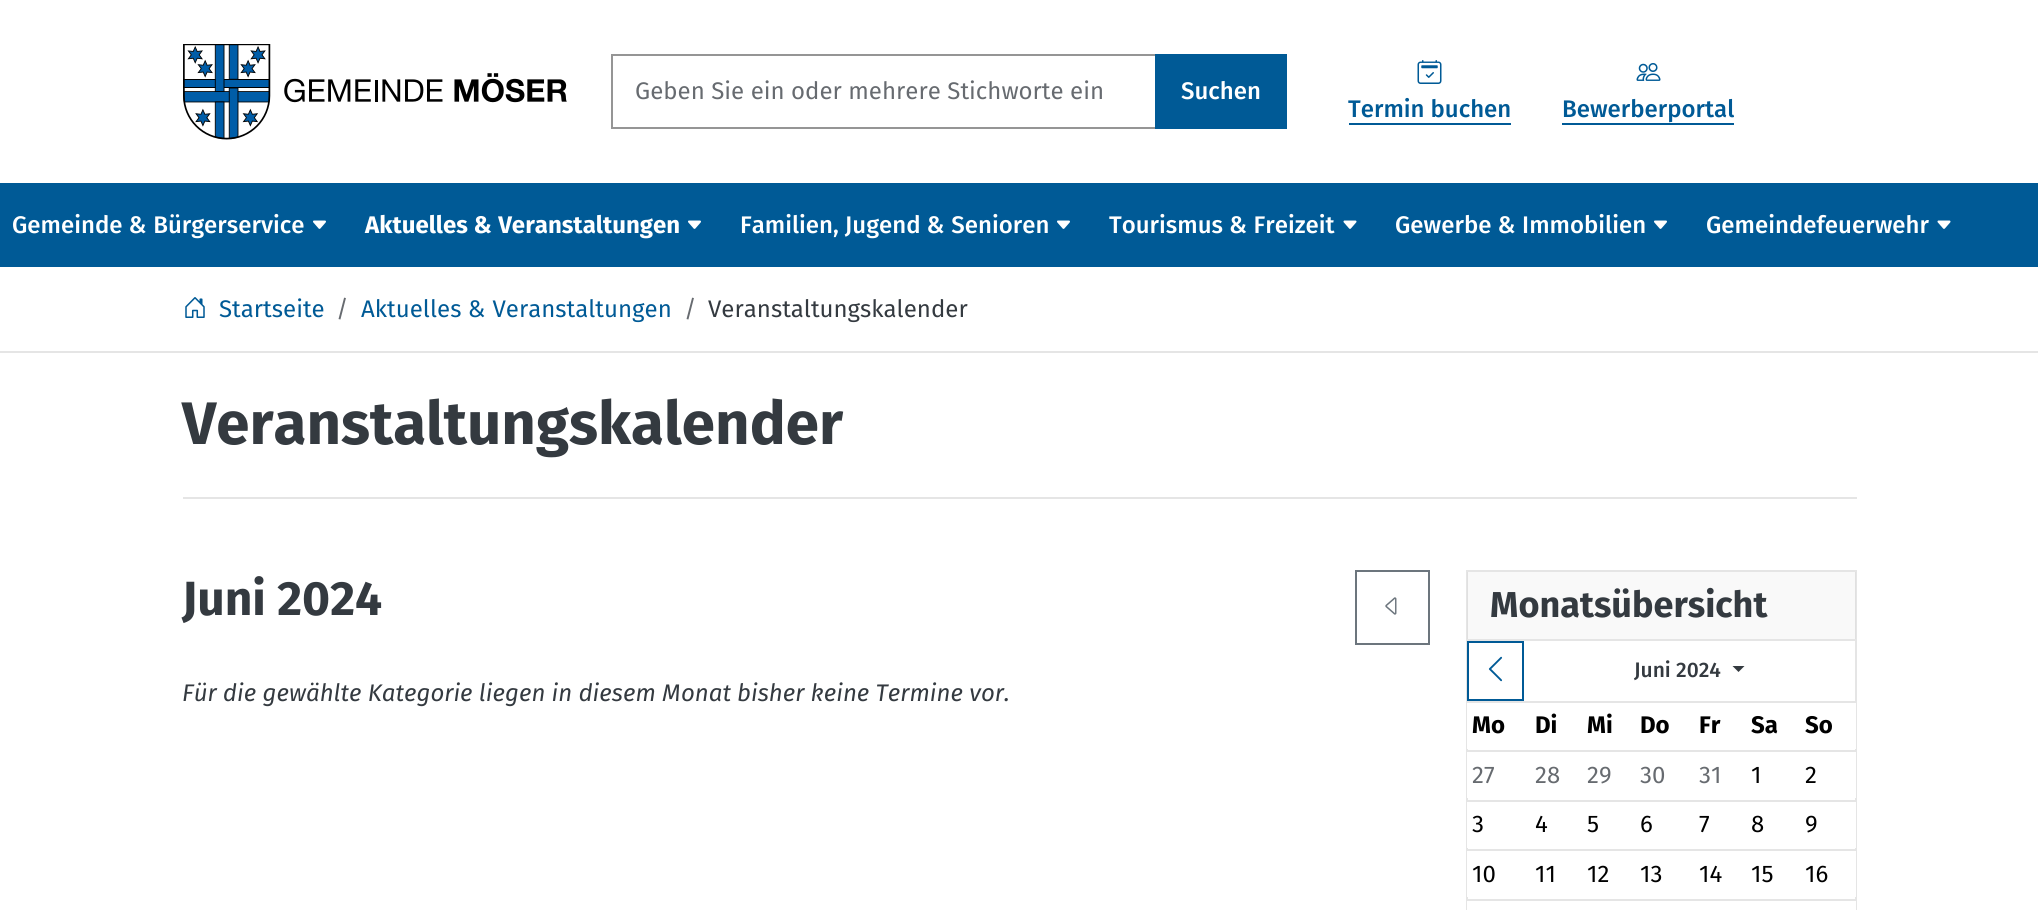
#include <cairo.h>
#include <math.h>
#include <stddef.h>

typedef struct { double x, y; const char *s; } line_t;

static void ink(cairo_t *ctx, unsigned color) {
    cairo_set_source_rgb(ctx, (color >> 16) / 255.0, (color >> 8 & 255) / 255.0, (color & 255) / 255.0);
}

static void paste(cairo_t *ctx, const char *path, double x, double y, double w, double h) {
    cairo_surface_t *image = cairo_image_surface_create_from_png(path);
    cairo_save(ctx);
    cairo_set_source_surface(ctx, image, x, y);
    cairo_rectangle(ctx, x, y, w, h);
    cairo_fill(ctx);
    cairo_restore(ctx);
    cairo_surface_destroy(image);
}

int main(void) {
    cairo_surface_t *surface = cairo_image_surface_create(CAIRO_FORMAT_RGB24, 2038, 910);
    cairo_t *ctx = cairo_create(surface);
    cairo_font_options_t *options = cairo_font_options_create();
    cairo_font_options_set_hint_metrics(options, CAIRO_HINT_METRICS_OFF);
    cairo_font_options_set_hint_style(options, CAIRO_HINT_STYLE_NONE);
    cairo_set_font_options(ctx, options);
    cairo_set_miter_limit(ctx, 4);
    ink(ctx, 0xFFFFFF);
    cairo_paint(ctx);
    paste(ctx, "media/1.png", 183, 44, 384, 96);
    cairo_rectangle(ctx, 612, 55, 544, 73);
    ink(ctx, 0x959595);
    cairo_stroke(ctx);
    cairo_select_font_face(ctx, "Fira Sans", CAIRO_FONT_SLANT_NORMAL, CAIRO_FONT_WEIGHT_NORMAL);
    cairo_set_font_size(ctx, 24);
    ink(ctx, 0x676B70);
    cairo_move_to(ctx, 635, 99);
    cairo_show_text(ctx, "Geben Sie ein oder mehrere Stichworte ein");
    ink(ctx, 0x005A96);
    cairo_rectangle(ctx, 1155, 54, 132, 75);
    cairo_fill(ctx);
    cairo_select_font_face(ctx, "Fira Sans Medium", CAIRO_FONT_SLANT_NORMAL, CAIRO_FONT_WEIGHT_NORMAL);
    ink(ctx, 0xFFFFFF);
    cairo_move_to(ctx, 1181, 99);
    cairo_show_text(ctx, "Suchen");
    paste(ctx, "media/2.png", 1417, 60, 25, 24);
    ink(ctx, 0x005A96);
    cairo_move_to(ctx, 1348, 117);
    cairo_show_text(ctx, "Termin buchen");
    cairo_rectangle(ctx, 1349, 123, 162, 2);
    cairo_fill(ctx);
    paste(ctx, "media/3.png", 1636, 63, 25, 18);
    cairo_move_to(ctx, 1562, 117);
    cairo_show_text(ctx, "Bewerberportal");
    cairo_rectangle(ctx, 1562, 123, 172, 2);
    cairo_fill(ctx);
    cairo_rectangle(ctx, 0, 183, 2038, 84);
    cairo_fill(ctx);
    ink(ctx, 0xFFFFFF);
    cairo_move_to(ctx, 12, 233);
    cairo_show_text(ctx, "Gemeinde & Bürgerservice");
    paste(ctx, "media/4.png", 313, 220, 13, 9);
    cairo_select_font_face(ctx, "Fira Sans", CAIRO_FONT_SLANT_NORMAL, CAIRO_FONT_WEIGHT_BOLD);
    cairo_move_to(ctx, 365, 233);
    cairo_show_text(ctx, "Aktuelles & Veranstaltungen");
    paste(ctx, "media/4.png", 688, 220, 13, 9);
    cairo_select_font_face(ctx, "Fira Sans Medium", CAIRO_FONT_SLANT_NORMAL, CAIRO_FONT_WEIGHT_NORMAL);
    cairo_move_to(ctx, 740, 233);
    cairo_show_text(ctx, "Familien, Jugend & Senioren");
    paste(ctx, "media/4.png", 1057, 220, 13, 9);
    cairo_move_to(ctx, 1109, 233);
    cairo_show_text(ctx, "Tourismus & Freizeit");
    paste(ctx, "media/5.png", 1343, 220, 14, 9);
    cairo_move_to(ctx, 1395, 233);
    cairo_show_text(ctx, "Gewerbe & Immobilien");
    paste(ctx, "media/4.png", 1654, 220, 13, 9);
    cairo_move_to(ctx, 1706, 233);
    cairo_show_text(ctx, "Gemeindefeuerwehr");
    paste(ctx, "media/5.png", 1937, 220, 14, 9);
    ink(ctx, 0xE5E5E5);
    cairo_rectangle(ctx, 0, 351, 2038, 2);
    cairo_fill(ctx);
    paste(ctx, "media/6.png", 185, 297, 20, 21);
    cairo_select_font_face(ctx, "Fira Sans", CAIRO_FONT_SLANT_NORMAL, CAIRO_FONT_WEIGHT_NORMAL);
    ink(ctx, 0x005A96);
    cairo_move_to(ctx, 219, 317);
    cairo_show_text(ctx, "Startseite");
    ink(ctx, 0x676B70);
    cairo_move_to(ctx, 336, 317);
    cairo_show_text(ctx, "/");
    ink(ctx, 0x005A96);
    cairo_move_to(ctx, 361, 317);
    cairo_show_text(ctx, "Aktuelles & Veranstaltungen");
    ink(ctx, 0x676B70);
    cairo_move_to(ctx, 684, 317);
    cairo_show_text(ctx, "/");
    ink(ctx, 0x343A40);
    cairo_move_to(ctx, 708, 317);
    cairo_show_text(ctx, "Veranstaltungskalender");
    ink(ctx, 0xE5E5E5);
    cairo_rectangle(ctx, 183, 497, 1674, 2);
    cairo_fill(ctx);
    cairo_select_font_face(ctx, "Fira Sans", CAIRO_FONT_SLANT_NORMAL, CAIRO_FONT_WEIGHT_BOLD);
    cairo_set_font_size(ctx, 60);
    ink(ctx, 0x343A40);
    cairo_move_to(ctx, 182, 444);
    cairo_show_text(ctx, "Veranstaltungskalender");
    cairo_set_font_size(ctx, 48);
    cairo_move_to(ctx, 182, 615);
    cairo_show_text(ctx, "Juni 2024");
    cairo_rectangle(ctx, 1356, 571, 73, 73);
    ink(ctx, 0x6C757D);
    cairo_stroke(ctx);
    paste(ctx, "media/7.png", 1385, 597, 12, 18);
    cairo_select_font_face(ctx, "Fira Sans", CAIRO_FONT_SLANT_ITALIC, CAIRO_FONT_WEIGHT_NORMAL);
    cairo_set_font_size(ctx, 24);
    ink(ctx, 0x343A40);
    cairo_move_to(ctx, 182, 701);
    cairo_show_text(ctx, "Für die gewählte Kategorie liegen in diesem Monat bisher keine Termine vor.");
    cairo_rectangle(ctx, 1467, 571, 389, 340);
    ink(ctx, 0xE5E5E5);
    cairo_stroke(ctx);
    cairo_set_source_rgba(ctx, 0.204, 0.227, 0.251, 0.03);
    cairo_rectangle(ctx, 1467, 572, 389, 67);
    cairo_fill(ctx);
    ink(ctx, 0xE5E5E5);
    cairo_rectangle(ctx, 1467, 639, 389, 2);
    cairo_fill(ctx);
    cairo_select_font_face(ctx, "Fira Sans", CAIRO_FONT_SLANT_NORMAL, CAIRO_FONT_WEIGHT_BOLD);
    cairo_set_font_size(ctx, 36);
    ink(ctx, 0x343A40);
    cairo_move_to(ctx, 1490, 617);
    cairo_show_text(ctx, "Monatsübersicht");
    cairo_rectangle(ctx, 1468, 642, 55, 58);
    ink(ctx, 0x005A96);
    cairo_stroke(ctx);
    paste(ctx, "media/8.png", 1488, 656, 15, 26);
    cairo_select_font_face(ctx, "Fira Sans Medium", CAIRO_FONT_SLANT_NORMAL, CAIRO_FONT_WEIGHT_NORMAL);
    cairo_set_font_size(ctx, 21);
    ink(ctx, 0x343A40);
    cairo_move_to(ctx, 1634, 677);
    cairo_show_text(ctx, "Juni 2024");
    cairo_new_path(ctx);
    cairo_move_to(ctx, 1732.5, 666);
    cairo_line_to(ctx, 1744.5, 666);
    cairo_line_to(ctx, 1738.5, 672);
    cairo_close_path(ctx);
    cairo_fill(ctx);
    ink(ctx, 0xE5E5E5);
    cairo_rectangle(ctx, 1467, 701, 389, 2);
    cairo_fill(ctx);
    ink(ctx, 0xFFFFFF);
    cairo_rectangle(ctx, 1467, 703, 1, 46);
    cairo_fill(ctx);
    cairo_select_font_face(ctx, "Fira Sans", CAIRO_FONT_SLANT_NORMAL, CAIRO_FONT_WEIGHT_BOLD);
    cairo_set_font_size(ctx, 24);
    ink(ctx, 0x000000);
    {
        static const line_t items[] = {
            {1472, 733, "Mo"},
            {1535, 733, "Di"},
            {1587, 733, "Mi"},
            {1640, 733, "Do"},
            {1699, 733, "Fr"},
            {1751, 733, "Sa"},
        };
        for (size_t i = 0; i < sizeof items / sizeof *items; i++) {
            cairo_move_to(ctx, items[i].x, items[i].y);
            cairo_show_text(ctx, items[i].s);
        }
    }
    ink(ctx, 0xFFFFFF);
    cairo_rectangle(ctx, 1855, 703, 1, 46);
    cairo_fill(ctx);
    ink(ctx, 0xE5E5E5);
    cairo_rectangle(ctx, 1466, 750, 390, 2);
    cairo_fill(ctx);
    ink(ctx, 0x000000);
    cairo_move_to(ctx, 1805, 733);
    cairo_show_text(ctx, "So");
    ink(ctx, 0xFFFFFF);
    cairo_rectangle(ctx, 1467, 752, 1, 46);
    cairo_fill(ctx);
    cairo_select_font_face(ctx, "Fira Sans", CAIRO_FONT_SLANT_NORMAL, CAIRO_FONT_WEIGHT_NORMAL);
    ink(ctx, 0x676B70);
    {
        static const line_t items[] = {
            {1472, 783, "27"},
            {1535, 783, "28"},
            {1587, 783, "29"},
            {1640, 783, "30"},
            {1699, 783, "31"},
        };
        for (size_t i = 0; i < sizeof items / sizeof *items; i++) {
            cairo_move_to(ctx, items[i].x, items[i].y);
            cairo_show_text(ctx, items[i].s);
        }
    }
    ink(ctx, 0x000000);
    cairo_move_to(ctx, 1751, 783);
    cairo_show_text(ctx, "1");
    ink(ctx, 0xFFFFFF);
    cairo_rectangle(ctx, 1855, 752, 1, 46);
    cairo_fill(ctx);
    ink(ctx, 0xE5E5E5);
    cairo_rectangle(ctx, 1466, 800, 390, 2);
    cairo_fill(ctx);
    ink(ctx, 0x000000);
    cairo_move_to(ctx, 1805, 783);
    cairo_show_text(ctx, "2");
    ink(ctx, 0xFFFFFF);
    cairo_rectangle(ctx, 1467, 802, 1, 46);
    cairo_fill(ctx);
    ink(ctx, 0x000000);
    {
        static const line_t items[] = {
            {1472, 832, "3"},
            {1535, 832, "4"},
            {1587, 832, "5"},
            {1640, 832, "6"},
            {1699, 832, "7"},
            {1751, 832, "8"},
        };
        for (size_t i = 0; i < sizeof items / sizeof *items; i++) {
            cairo_move_to(ctx, items[i].x, items[i].y);
            cairo_show_text(ctx, items[i].s);
        }
    }
    ink(ctx, 0xFFFFFF);
    cairo_rectangle(ctx, 1855, 802, 1, 46);
    cairo_fill(ctx);
    ink(ctx, 0xE5E5E5);
    cairo_rectangle(ctx, 1466, 849, 390, 2);
    cairo_fill(ctx);
    ink(ctx, 0x000000);
    cairo_move_to(ctx, 1805, 832);
    cairo_show_text(ctx, "9");
    ink(ctx, 0xFFFFFF);
    cairo_rectangle(ctx, 1467, 851, 1, 46);
    cairo_fill(ctx);
    ink(ctx, 0x000000);
    {
        static const line_t items[] = {
            {1472, 882, "10"},
            {1535, 882, "11"},
            {1587, 882, "12"},
            {1640, 882, "13"},
            {1699, 882, "14"},
            {1751, 882, "15"},
        };
        for (size_t i = 0; i < sizeof items / sizeof *items; i++) {
            cairo_move_to(ctx, items[i].x, items[i].y);
            cairo_show_text(ctx, items[i].s);
        }
    }
    ink(ctx, 0xFFFFFF);
    cairo_rectangle(ctx, 1855, 851, 1, 46);
    cairo_fill(ctx);
    ink(ctx, 0xE5E5E5);
    cairo_rectangle(ctx, 1466, 899, 390, 2);
    cairo_fill(ctx);
    ink(ctx, 0x000000);
    cairo_move_to(ctx, 1805, 882);
    cairo_show_text(ctx, "16");
    ink(ctx, 0xFFFFFF);
    cairo_rectangle(ctx, 1467, 901, 1, 9);
    cairo_fill(ctx);
    cairo_rectangle(ctx, 1855, 901, 1, 9);
    cairo_fill(ctx);
    cairo_surface_write_to_png(surface, "image.png");
    cairo_font_options_destroy(options);
    cairo_destroy(ctx);
    cairo_surface_destroy(surface);
    return 0;
}
